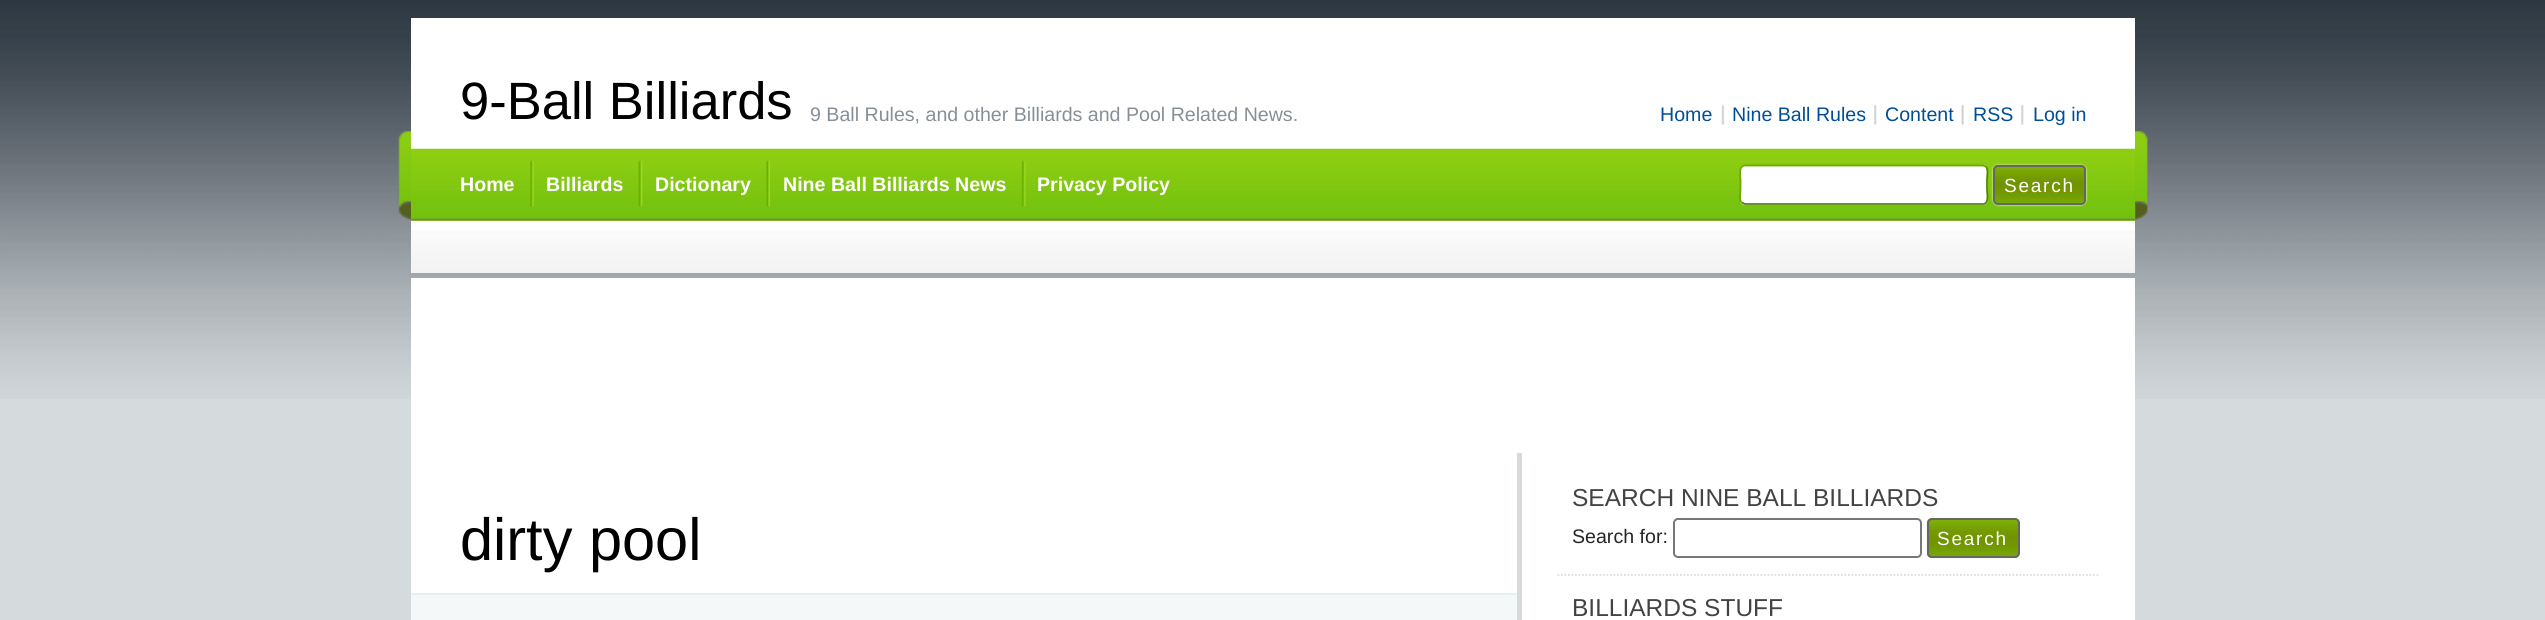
#include <cairo.h>
#include <math.h>
#include <stddef.h>

typedef struct { double x, y, w, h; unsigned color; } box_t;

static void ink(cairo_t *ctx, unsigned color) {
    cairo_set_source_rgb(ctx, (color >> 16) / 255.0, (color >> 8 & 255) / 255.0, (color & 255) / 255.0);
}

static void write_spaced(cairo_t *ctx, double x, double y, const char *s, double letter, double word) {
    cairo_move_to(ctx, x, y);
    while (*s) {
        char ch[5] = {0};
        int n = 0;
        do ch[n++] = *s++; while ((*s & 0xC0) == 0x80);
        cairo_show_text(ctx, ch);
        cairo_rel_move_to(ctx, letter + word * (*ch == ' '), 0);
    }
}

static void round_path(cairo_t *ctx, double x, double y, double w, double h, double r) {
    cairo_new_sub_path(ctx);
    cairo_arc(ctx, x + w - r, y + h - r, r, 0, M_PI / 2);
    cairo_arc(ctx, x + r, y + h - r, r, M_PI / 2, M_PI);
    cairo_arc(ctx, x + r, y + r, r, M_PI, 1.5 * M_PI);
    cairo_arc(ctx, x + w - r, y + r, r, 1.5 * M_PI, 2 * M_PI);
    cairo_close_path(ctx);
}

static void blur_box(cairo_t *ctx, double x, double y, double w, double h, double r, double blur, double alpha) {
    cairo_push_group_with_content(ctx, CAIRO_CONTENT_ALPHA);
    cairo_set_operator(ctx, CAIRO_OPERATOR_SOURCE);
    for (int i = 15; i >= -15 && fmin(w, h) + blur * i / 3 > 0; i -= 2) {
        double e = blur * i / 6;
        cairo_set_source_rgba(ctx, 0, 0, 0, alpha * erfc((i - 1) / 8.5) / 2);
        round_path(ctx, x - e, y - e, w + 2 * e, h + 2 * e, fmax(0, fmin(r + e + blur * .6, fmin(w, h) / 2 + e)));
        cairo_fill(ctx);
    }
    cairo_pattern_t *soft = cairo_pop_group(ctx);
    cairo_mask(ctx, soft);
    cairo_pattern_destroy(soft);
}

static void paste(cairo_t *ctx, const char *path, double x, double y, double w, double h) {
    cairo_surface_t *image = cairo_image_surface_create_from_png(path);
    cairo_save(ctx);
    cairo_set_source_surface(ctx, image, x, y);
    cairo_rectangle(ctx, x, y, w, h);
    cairo_fill(ctx);
    cairo_restore(ctx);
    cairo_surface_destroy(image);
}

int main(void) {
    cairo_surface_t *surface = cairo_image_surface_create(CAIRO_FORMAT_RGB24, 2545, 620);
    cairo_t *ctx = cairo_create(surface);
    cairo_font_options_t *options = cairo_font_options_create();
    cairo_font_options_set_hint_metrics(options, CAIRO_HINT_METRICS_OFF);
    cairo_font_options_set_hint_style(options, CAIRO_HINT_STYLE_NONE);
    cairo_set_font_options(ctx, options);
    cairo_set_miter_limit(ctx, 4);
    ink(ctx, 0xD5DADD);
    cairo_paint(ctx);
    paste(ctx, "media/1.png", 0, 0, 2545, 399);
    paste(ctx, "media/2.png", 397, 130, 1752, 91);
    ink(ctx, 0xFFFFFF);
    cairo_rectangle(ctx, 411, 18, 1724, 255);
    cairo_fill(ctx);
    cairo_select_font_face(ctx, "Liberation Sans", CAIRO_FONT_SLANT_NORMAL, CAIRO_FONT_WEIGHT_NORMAL);
    cairo_set_font_size(ctx, 52.5);
    ink(ctx, 0x000000);
    cairo_move_to(ctx, 460, 119);
    cairo_show_text(ctx, "9-Ball Billiards");
    cairo_set_font_size(ctx, 19.6);
    ink(ctx, 0x868F98);
    cairo_move_to(ctx, 810, 121);
    cairo_show_text(ctx, "9 Ball Rules, and other Billiards and Pool Related News.");
    paste(ctx, "media/3.png", 1721, 104, 4, 21);
    ink(ctx, 0x004D99);
    cairo_move_to(ctx, 1660, 121);
    cairo_show_text(ctx, "Home");
    paste(ctx, "media/4.png", 1874, 104, 3, 21);
    cairo_move_to(ctx, 1732, 121);
    cairo_show_text(ctx, "Nine Ball Rules");
    paste(ctx, "media/5.png", 1961, 104, 3, 21);
    cairo_move_to(ctx, 1885, 121);
    cairo_show_text(ctx, "Content");
    paste(ctx, "media/4.png", 2021, 104, 3, 21);
    cairo_move_to(ctx, 1973, 121);
    cairo_show_text(ctx, "RSS");
    cairo_move_to(ctx, 2033, 121);
    cairo_show_text(ctx, "Log in");
    ink(ctx, 0x89CB11);
    cairo_rectangle(ctx, 411, 149, 1724, 72);
    cairo_fill(ctx);
    paste(ctx, "media/6.png", 411, 148, 1724, 73);
    cairo_select_font_face(ctx, "Liberation Sans", CAIRO_FONT_SLANT_NORMAL, CAIRO_FONT_WEIGHT_BOLD);
    ink(ctx, 0xFFFFFF);
    cairo_move_to(ctx, 460, 191);
    cairo_show_text(ctx, "Home");
    paste(ctx, "media/7.png", 530, 160, 4, 47);
    cairo_move_to(ctx, 546, 191);
    cairo_show_text(ctx, "Billiards");
    paste(ctx, "media/8.png", 638, 160, 5, 47);
    cairo_move_to(ctx, 655, 191);
    cairo_show_text(ctx, "Dictionary");
    paste(ctx, "media/9.png", 766, 160, 4, 47);
    cairo_move_to(ctx, 783, 191);
    cairo_show_text(ctx, "Nine Ball Billiards News");
    paste(ctx, "media/10.png", 1021, 160, 5, 47);
    cairo_move_to(ctx, 1037, 191);
    cairo_show_text(ctx, "Privacy Policy");
    round_path(ctx, 1740, 165, 248, 40, 5);
    cairo_fill(ctx);
    cairo_new_path(ctx);
    cairo_move_to(ctx, 1986, 166.5);
    cairo_curve_to(ctx, 1988.5, 169.5, 1987, 176.5, 1987, 179.5);
    cairo_line_to(ctx, 1987, 189.5);
    cairo_curve_to(ctx, 1987, 193, 1989.5, 204, 1983, 204);
    cairo_line_to(ctx, 1745, 204);
    cairo_line_to(ctx, 1741.5, 202.5);
    ink(ctx, 0x548301);
    cairo_set_line_width(ctx, 1.8);
    cairo_stroke(ctx);
    cairo_new_path(ctx);
    cairo_move_to(ctx, 1741.5, 202.5);
    cairo_curve_to(ctx, 1739, 200, 1740.5, 192.5, 1740.5, 189.5);
    cairo_line_to(ctx, 1740.5, 179.5);
    cairo_curve_to(ctx, 1740.5, 176.5, 1738, 165.5, 1745, 165.5);
    cairo_line_to(ctx, 1983, 165.5);
    cairo_line_to(ctx, 1986, 166.5);
    ink(ctx, 0x69AB01);
    cairo_stroke(ctx);
    ink(ctx, 0xFFFFFF);
    blur_box(ctx, 1993, 165, 93, 40, 5, 1, 1);
    paste(ctx, "media/11.png", 1993, 164, 93, 41);
    round_path(ctx, 1994, 166, 91, 38, 4);
    ink(ctx, 0x666666);
    cairo_set_line_width(ctx, 2);
    cairo_stroke(ctx);
    cairo_select_font_face(ctx, "Liberation Sans", CAIRO_FONT_SLANT_NORMAL, CAIRO_FONT_WEIGHT_NORMAL);
    cairo_set_font_size(ctx, 19);
    ink(ctx, 0xFFFFFF);
    write_spaced(ctx, 2004, 192, "Search", 1.75, 0);
    paste(ctx, "media/12.png", 411, 230, 1724, 43);
    cairo_rectangle(ctx, 411, 278, 1724, 342);
    cairo_fill(ctx);
    cairo_set_font_size(ctx, 59.5);
    ink(ctx, 0x000000);
    cairo_move_to(ctx, 460, 560);
    cairo_show_text(ctx, "dirty pool");
    {
        static const box_t items[] = {
            {411, 595, 1106, 25, 0xF4F8F9},
            {411, 593, 1106, 2, 0xE6F0F2},
            {1517, 453, 5, 167, 0xD5DADD},
        };
        for (size_t i = 0; i < sizeof items / sizeof *items; i++) {
            ink(ctx, items[i].color);
            cairo_rectangle(ctx, items[i].x, items[i].y, items[i].w, items[i].h);
            cairo_fill(ctx);
        }
    }
    cairo_new_path(ctx);
    cairo_move_to(ctx, 1557.5, 575);
    cairo_line_to(ctx, 2100, 575);
    ink(ctx, 0xDDDDDD);
    cairo_set_line_width(ctx, 1.8);
    cairo_set_dash(ctx, (double[]){1.75, 1.75}, 2, 0);
    cairo_stroke(ctx);
    cairo_set_font_size(ctx, 24.5);
    ink(ctx, 0x434343);
    cairo_move_to(ctx, 1572, 506);
    cairo_show_text(ctx, "SEARCH NINE BALL BILLIARDS");
    cairo_set_font_size(ctx, 19.6);
    ink(ctx, 0x242626);
    cairo_move_to(ctx, 1572, 543);
    cairo_show_text(ctx, "Search for:");
    round_path(ctx, 1674, 519, 247, 38, 4);
    ink(ctx, 0x777777);
    cairo_set_line_width(ctx, 2);
    cairo_set_dash(ctx, NULL, 0, 0);
    cairo_stroke(ctx);
    paste(ctx, "media/13.png", 1926, 518, 94, 41);
    round_path(ctx, 1928, 519, 91, 38, 4);
    ink(ctx, 0x666666);
    cairo_stroke(ctx);
    cairo_set_font_size(ctx, 19);
    ink(ctx, 0xFFFFFF);
    write_spaced(ctx, 1937, 545, "Search", 1.75, 0);
    cairo_set_font_size(ctx, 24.5);
    ink(ctx, 0x434343);
    cairo_move_to(ctx, 1572, 616);
    cairo_show_text(ctx, "BILLIARDS STUFF");
    cairo_surface_write_to_png(surface, "image.png");
    cairo_font_options_destroy(options);
    cairo_destroy(ctx);
    cairo_surface_destroy(surface);
    return 0;
}
